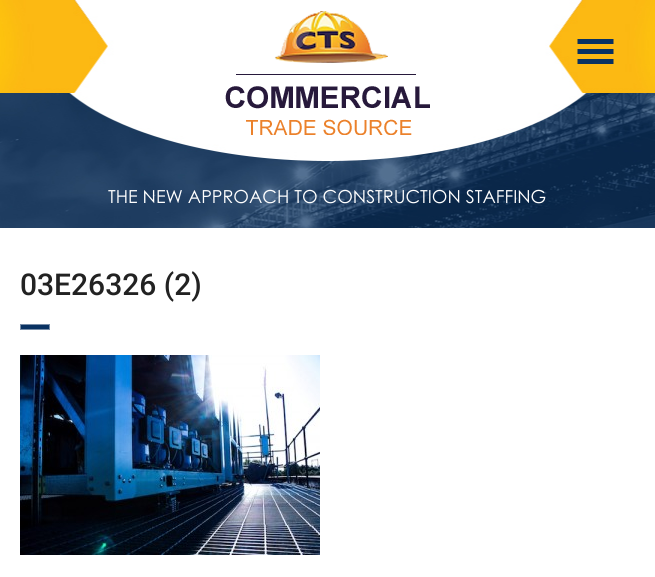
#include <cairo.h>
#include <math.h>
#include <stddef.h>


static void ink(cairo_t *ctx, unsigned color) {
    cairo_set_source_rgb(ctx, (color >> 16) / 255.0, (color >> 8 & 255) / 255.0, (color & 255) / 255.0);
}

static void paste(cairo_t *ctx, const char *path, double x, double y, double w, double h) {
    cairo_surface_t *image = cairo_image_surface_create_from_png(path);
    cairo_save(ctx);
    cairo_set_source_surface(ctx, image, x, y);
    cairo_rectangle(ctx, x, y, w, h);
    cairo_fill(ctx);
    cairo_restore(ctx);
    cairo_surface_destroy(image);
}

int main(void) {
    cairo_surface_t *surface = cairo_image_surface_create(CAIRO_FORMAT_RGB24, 655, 577);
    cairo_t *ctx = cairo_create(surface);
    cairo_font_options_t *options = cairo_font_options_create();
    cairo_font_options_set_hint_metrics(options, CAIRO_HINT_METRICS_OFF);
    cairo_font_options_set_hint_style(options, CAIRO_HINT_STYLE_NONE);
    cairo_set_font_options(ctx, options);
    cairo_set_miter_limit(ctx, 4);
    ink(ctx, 0xFFFFFF);
    cairo_paint(ctx);
    paste(ctx, "media/1.png", 0, 0, 655, 228);
    ink(ctx, 0x093262);
    cairo_new_path(ctx);
    cairo_move_to(ctx, 577.5, 64);
    cairo_line_to(ctx, 613.5, 64);
    cairo_line_to(ctx, 613.5, 59);
    cairo_line_to(ctx, 577.5, 59);
    cairo_close_path(ctx);
    cairo_move_to(ctx, 577.5, 39);
    cairo_line_to(ctx, 577.5, 44);
    cairo_line_to(ctx, 613.5, 44);
    cairo_line_to(ctx, 613.5, 39);
    cairo_close_path(ctx);
    cairo_move_to(ctx, 577.5, 54);
    cairo_line_to(ctx, 613.5, 54);
    cairo_line_to(ctx, 613.5, 49);
    cairo_line_to(ctx, 577.5, 49);
    cairo_close_path(ctx);
    cairo_fill(ctx);
    paste(ctx, "media/2.png", 225, 11, 205, 124);
    cairo_select_font_face(ctx, "Century Gothic", CAIRO_FONT_SLANT_NORMAL, CAIRO_FONT_WEIGHT_NORMAL);
    cairo_set_font_size(ctx, 18);
    ink(ctx, 0xFFFFFF);
    cairo_move_to(ctx, 108, 203);
    cairo_show_text(ctx, "THE NEW APPROACH TO CONSTRUCTION STAFFING");
    cairo_select_font_face(ctx, "Roboto Medium", CAIRO_FONT_SLANT_NORMAL, CAIRO_FONT_WEIGHT_NORMAL);
    cairo_set_font_size(ctx, 30);
    ink(ctx, 0x222222);
    cairo_move_to(ctx, 20, 295);
    cairo_show_text(ctx, "03E26326 (2)");
    ink(ctx, 0x093262);
    cairo_rectangle(ctx, 20.5, 324.5, 29, 5);
    cairo_fill_preserve(ctx);
    ink(ctx, 0x788DA7);
    cairo_set_line_width(ctx, 1);
    cairo_stroke(ctx);
    paste(ctx, "media/3.png", 20, 355, 300, 200);
    cairo_surface_write_to_png(surface, "image.png");
    cairo_font_options_destroy(options);
    cairo_destroy(ctx);
    cairo_surface_destroy(surface);
    return 0;
}
